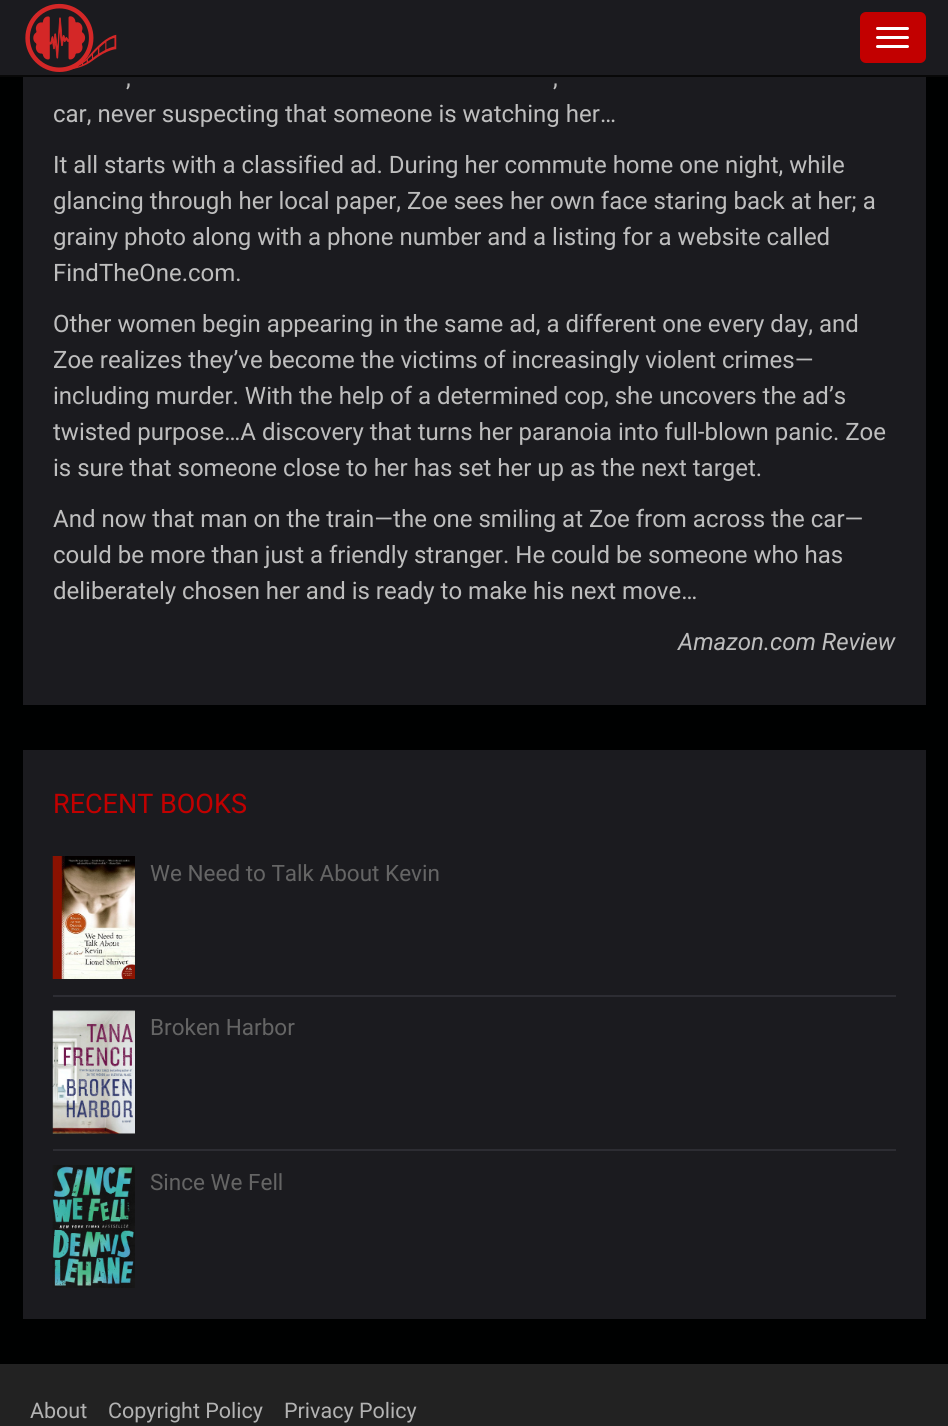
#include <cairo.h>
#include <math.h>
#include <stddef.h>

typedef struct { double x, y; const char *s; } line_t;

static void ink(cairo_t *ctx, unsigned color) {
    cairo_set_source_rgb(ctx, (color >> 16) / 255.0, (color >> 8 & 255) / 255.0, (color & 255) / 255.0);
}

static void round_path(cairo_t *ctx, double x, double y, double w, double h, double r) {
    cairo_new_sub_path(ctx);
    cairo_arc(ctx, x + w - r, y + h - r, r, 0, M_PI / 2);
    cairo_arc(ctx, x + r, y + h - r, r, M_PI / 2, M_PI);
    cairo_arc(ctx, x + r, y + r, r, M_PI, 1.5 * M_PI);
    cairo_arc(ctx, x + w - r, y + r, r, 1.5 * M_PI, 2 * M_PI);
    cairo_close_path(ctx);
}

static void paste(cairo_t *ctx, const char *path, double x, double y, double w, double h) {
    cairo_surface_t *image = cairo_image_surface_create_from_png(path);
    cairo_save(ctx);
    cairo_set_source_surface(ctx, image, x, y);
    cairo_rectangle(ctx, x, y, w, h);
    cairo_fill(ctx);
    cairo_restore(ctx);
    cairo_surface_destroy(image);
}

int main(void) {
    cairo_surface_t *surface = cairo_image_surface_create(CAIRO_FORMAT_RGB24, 948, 1426);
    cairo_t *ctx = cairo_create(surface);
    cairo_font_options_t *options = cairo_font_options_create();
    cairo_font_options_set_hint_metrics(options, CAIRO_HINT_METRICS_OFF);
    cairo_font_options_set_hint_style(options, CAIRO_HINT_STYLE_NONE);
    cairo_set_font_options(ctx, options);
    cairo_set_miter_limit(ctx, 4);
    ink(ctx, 0x000101);
    cairo_paint(ctx);
    ink(ctx, 0x1B1B1F);
    cairo_rectangle(ctx, 0, 0, 948, 75);
    cairo_fill(ctx);
    ink(ctx, 0x080808);
    cairo_rectangle(ctx, 0, 75, 948, 2);
    cairo_fill(ctx);
    paste(ctx, "media/1.png", 25, 3, 92, 69);
    ink(ctx, 0xC20000);
    round_path(ctx, 860, 12, 66, 51, 6);
    cairo_fill(ctx);
    ink(ctx, 0xFFFFFF);
    round_path(ctx, 876, 27, 33, 3, 1.5);
    cairo_fill(ctx);
    round_path(ctx, 876, 36, 33, 3, 1.5);
    cairo_fill(ctx);
    round_path(ctx, 876, 45, 33, 3, 1.5);
    cairo_fill(ctx);
    ink(ctx, 0x1B1B1F);
    cairo_rectangle(ctx, 23, 77, 903, 628);
    cairo_fill(ctx);
    cairo_select_font_face(ctx, "Roboto", CAIRO_FONT_SLANT_NORMAL, CAIRO_FONT_WEIGHT_NORMAL);
    cairo_set_font_size(ctx, 24);
    ink(ctx, 0xBEBEBE);
    {
        static const line_t items[] = {
            {126, 86, ","},
            {553, 86, ","},
            {53, 122, "car, never suspecting that someone is watching her…"},
            {53, 173, "It all starts with a classified ad. During her commute home one night, while"},
            {53, 209, "glancing through her local paper, Zoe sees her own face staring back at her; a"},
            {53, 245, "grainy photo along with a phone number and a listing for a website called"},
            {53, 281, "FindTheOne.com."},
            {53, 332, "Other women begin appearing in the same ad, a different one every day, and"},
            {53, 368, "Zoe realizes they’ve become the victims of increasingly violent crimes—"},
            {53, 404, "including murder. With the help of a determined cop, she uncovers the ad’s"},
            {53, 440, "twisted purpose…A discovery that turns her paranoia into full-blown panic. Zoe"},
            {53, 476, "is sure that someone close to her has set her up as the next target."},
            {53, 527, "And now that man on the train—the one smiling at Zoe from across the car—"},
            {53, 563, "could be more than just a friendly stranger. He could be someone who has"},
            {53, 599, "deliberately chosen her and is ready to make his next move…"},
        };
        for (size_t i = 0; i < sizeof items / sizeof *items; i++) {
            cairo_move_to(ctx, items[i].x, items[i].y);
            cairo_show_text(ctx, items[i].s);
        }
    }
    cairo_select_font_face(ctx, "Roboto", CAIRO_FONT_SLANT_ITALIC, CAIRO_FONT_WEIGHT_NORMAL);
    cairo_move_to(ctx, 678, 650);
    cairo_show_text(ctx, "Amazon.com Review");
    ink(ctx, 0x1B1B1F);
    cairo_rectangle(ctx, 23, 750, 903, 569);
    cairo_fill(ctx);
    cairo_select_font_face(ctx, "Roboto", CAIRO_FONT_SLANT_NORMAL, CAIRO_FONT_WEIGHT_NORMAL);
    cairo_set_font_size(ctx, 27);
    ink(ctx, 0xC20000);
    cairo_move_to(ctx, 53, 813);
    cairo_show_text(ctx, "RECENT BOOKS");
    ink(ctx, 0x2D2D33);
    cairo_rectangle(ctx, 53, 995, 843, 2);
    cairo_fill(ctx);
    paste(ctx, "media/2.png", 52, 856, 83, 123);
    cairo_set_font_size(ctx, 22.5);
    ink(ctx, 0x656565);
    cairo_move_to(ctx, 150, 881);
    cairo_show_text(ctx, "We Need to Talk About Kevin");
    ink(ctx, 0x2D2D33);
    cairo_rectangle(ctx, 53, 1149, 843, 2);
    cairo_fill(ctx);
    paste(ctx, "media/3.png", 52, 1010, 83, 124);
    ink(ctx, 0x656565);
    cairo_move_to(ctx, 150, 1035);
    cairo_show_text(ctx, "Broken Harbor");
    paste(ctx, "media/4.png", 52, 1165, 83, 123);
    cairo_move_to(ctx, 150, 1190);
    cairo_show_text(ctx, "Since We Fell");
    ink(ctx, 0x222222);
    cairo_rectangle(ctx, 0, 1364, 948, 62);
    cairo_fill(ctx);
    cairo_set_font_size(ctx, 21.5);
    ink(ctx, 0xB3B3B3);
    {
        static const line_t items[] = {
            {30, 1418, "About"},
            {108, 1418, "Copyright Policy"},
            {284, 1418, "Privacy Policy"},
        };
        for (size_t i = 0; i < sizeof items / sizeof *items; i++) {
            cairo_move_to(ctx, items[i].x, items[i].y);
            cairo_show_text(ctx, items[i].s);
        }
    }
    cairo_surface_write_to_png(surface, "image.png");
    cairo_font_options_destroy(options);
    cairo_destroy(ctx);
    cairo_surface_destroy(surface);
    return 0;
}
